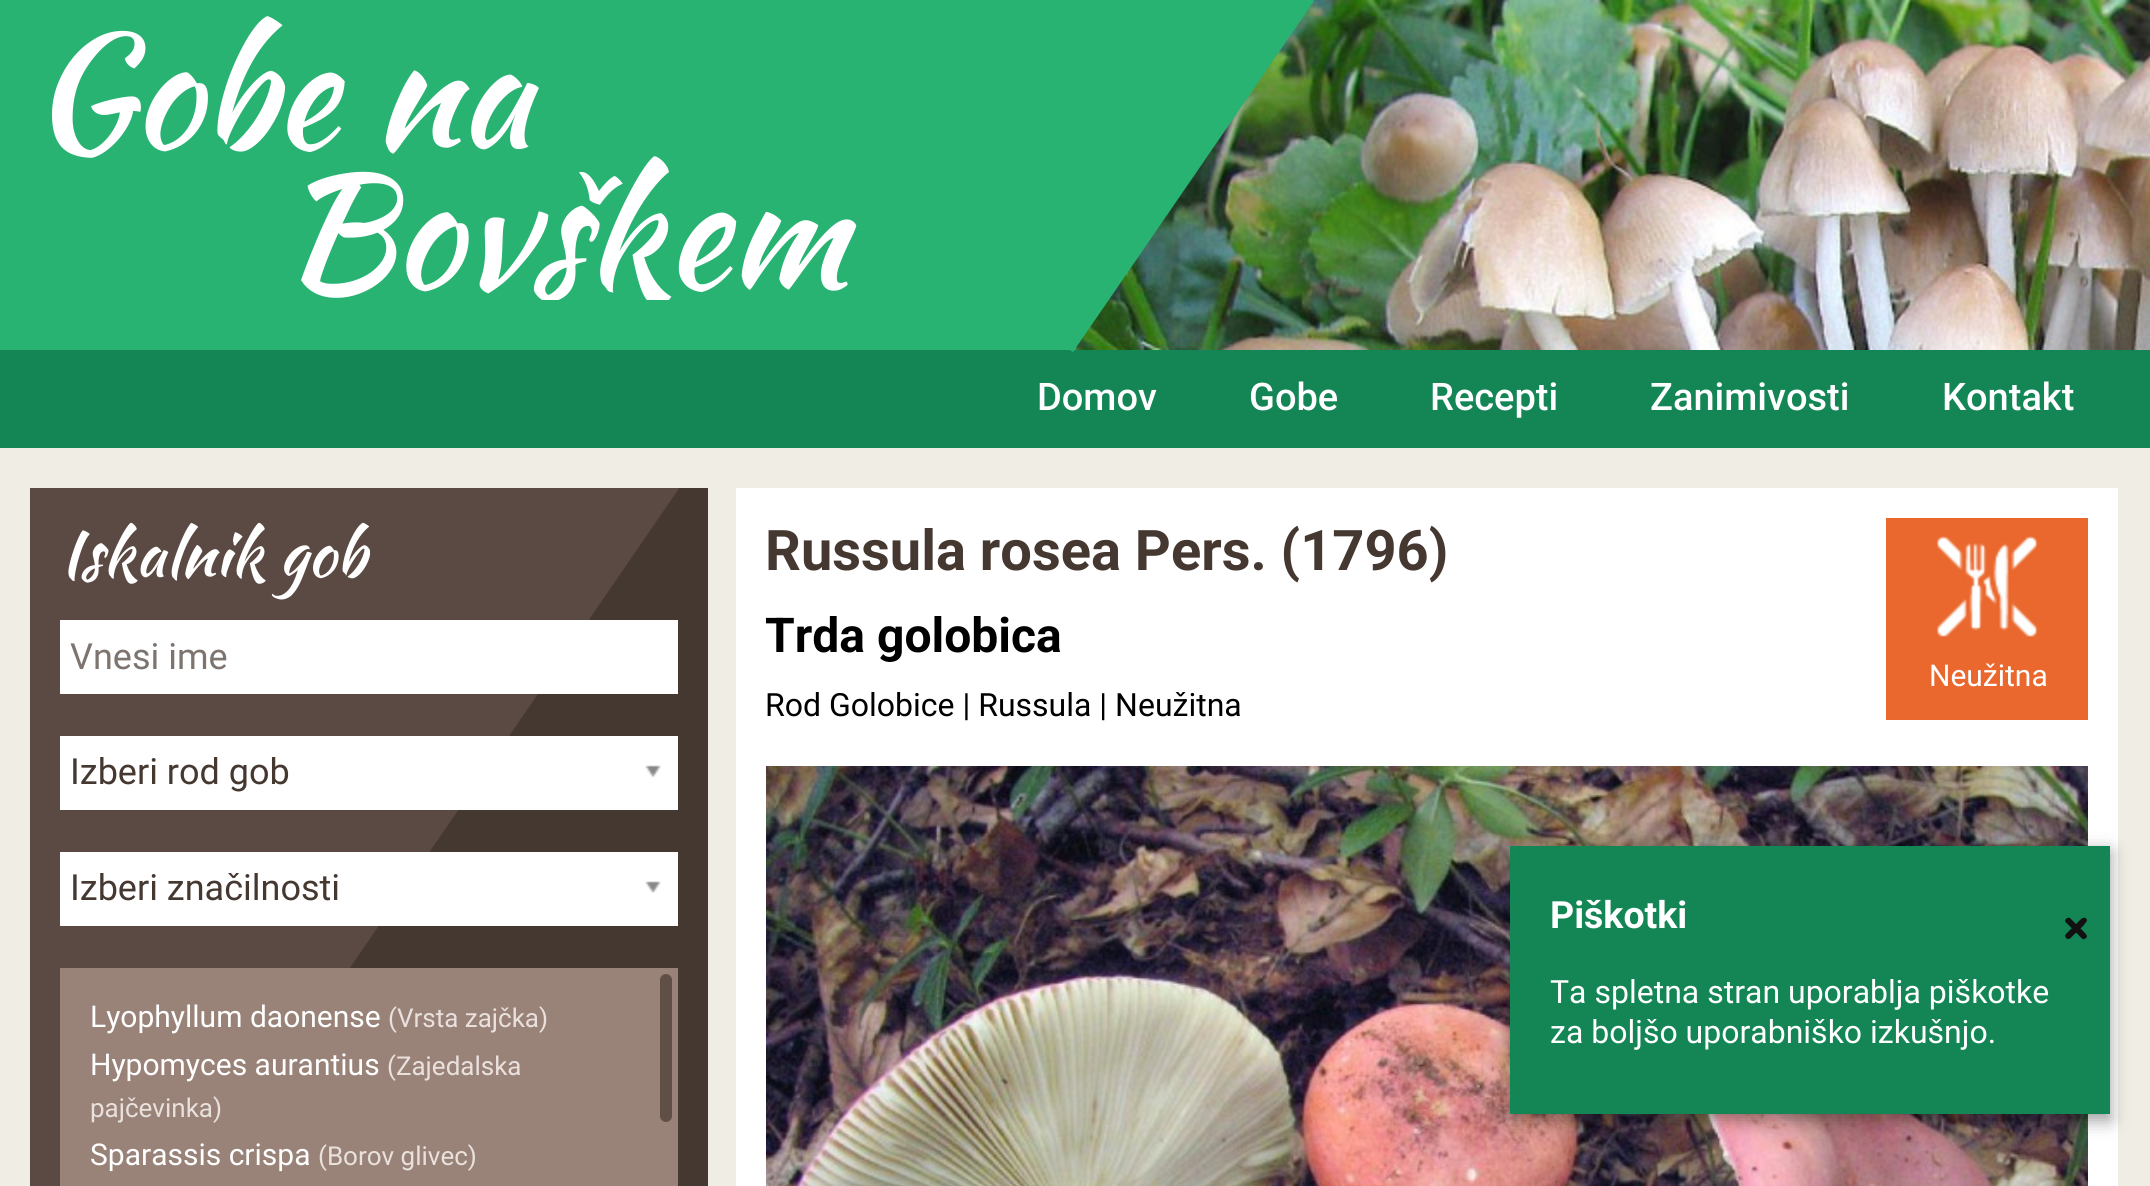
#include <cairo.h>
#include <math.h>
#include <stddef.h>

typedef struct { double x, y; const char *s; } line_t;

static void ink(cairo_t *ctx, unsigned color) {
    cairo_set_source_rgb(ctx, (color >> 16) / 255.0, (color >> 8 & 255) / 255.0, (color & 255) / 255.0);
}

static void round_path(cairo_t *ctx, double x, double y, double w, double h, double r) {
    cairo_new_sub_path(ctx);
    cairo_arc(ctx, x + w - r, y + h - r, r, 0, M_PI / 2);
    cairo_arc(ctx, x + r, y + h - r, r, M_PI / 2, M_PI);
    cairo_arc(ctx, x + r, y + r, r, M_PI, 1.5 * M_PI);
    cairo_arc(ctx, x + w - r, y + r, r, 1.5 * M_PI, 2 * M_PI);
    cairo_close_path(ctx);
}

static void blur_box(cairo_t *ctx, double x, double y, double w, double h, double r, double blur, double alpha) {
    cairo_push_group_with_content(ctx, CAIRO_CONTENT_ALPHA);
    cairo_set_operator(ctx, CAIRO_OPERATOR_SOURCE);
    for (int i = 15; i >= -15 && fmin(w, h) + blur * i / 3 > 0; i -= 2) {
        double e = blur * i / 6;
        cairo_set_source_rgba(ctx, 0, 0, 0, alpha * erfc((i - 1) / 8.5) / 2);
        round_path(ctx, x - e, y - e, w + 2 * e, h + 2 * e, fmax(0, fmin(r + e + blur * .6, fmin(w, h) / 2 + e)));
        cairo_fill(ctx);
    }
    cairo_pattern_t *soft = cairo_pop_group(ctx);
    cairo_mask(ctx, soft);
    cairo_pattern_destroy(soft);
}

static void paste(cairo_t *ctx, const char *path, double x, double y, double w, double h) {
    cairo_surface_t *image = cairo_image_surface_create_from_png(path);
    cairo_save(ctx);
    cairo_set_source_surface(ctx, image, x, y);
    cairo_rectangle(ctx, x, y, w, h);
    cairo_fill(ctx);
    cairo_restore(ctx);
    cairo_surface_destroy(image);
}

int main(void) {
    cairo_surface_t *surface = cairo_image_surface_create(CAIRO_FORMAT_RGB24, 2150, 1186);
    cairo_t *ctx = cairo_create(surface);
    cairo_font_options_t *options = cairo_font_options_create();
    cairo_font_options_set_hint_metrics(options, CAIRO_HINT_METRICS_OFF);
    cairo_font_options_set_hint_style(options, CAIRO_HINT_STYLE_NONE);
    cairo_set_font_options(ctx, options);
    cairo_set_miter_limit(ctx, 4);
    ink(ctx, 0xF0EDE5);
    cairo_paint(ctx);
    ink(ctx, 0x29B373);
    cairo_rectangle(ctx, 0, 0, 1076, 350);
    cairo_fill(ctx);
    cairo_select_font_face(ctx, "Kaushan Script", CAIRO_FONT_SLANT_NORMAL, CAIRO_FONT_WEIGHT_NORMAL);
    cairo_set_font_size(ctx, 156);
    ink(ctx, 0xFFFFFF);
    cairo_move_to(ctx, 30, 146);
    cairo_show_text(ctx, "Gobe na");
    paste(ctx, "media/1.png", 1076, 0, 1074, 350);
    ink(ctx, 0x148656);
    cairo_rectangle(ctx, 0, 350, 2150, 98);
    cairo_fill(ctx);
    ink(ctx, 0x29B373);
    cairo_new_path(ctx);
    cairo_move_to(ctx, 985, -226);
    cairo_line_to(ctx, 1314, 1);
    cairo_line_to(ctx, 1073, 352);
    cairo_line_to(ctx, 744, 125);
    cairo_close_path(ctx);
    cairo_fill(ctx);
    cairo_save(ctx);
    cairo_rectangle(ctx, 0, 0, 1290, 300);
    cairo_clip(ctx);
    ink(ctx, 0xFFFFFF);
    cairo_move_to(ctx, 280, 286);
    cairo_show_text(ctx, "Bovškem");
    cairo_restore(ctx);
    cairo_select_font_face(ctx, "Roboto Medium", CAIRO_FONT_SLANT_NORMAL, CAIRO_FONT_WEIGHT_NORMAL);
    cairo_set_font_size(ctx, 38);
    ink(ctx, 0xFFFFFF);
    {
        static const line_t items[] = {
            {1037, 410, "Domov"},
            {1249, 410, "Gobe"},
            {1430, 410, "Recepti"},
            {1650, 410, "Zanimivosti"},
            {1942, 410, "Kontakt"},
        };
        for (size_t i = 0; i < sizeof items / sizeof *items; i++) {
            cairo_move_to(ctx, items[i].x, items[i].y);
            cairo_show_text(ctx, items[i].s);
        }
    }
    ink(ctx, 0x453831);
    cairo_rectangle(ctx, 349, 488, 359, 698);
    cairo_fill(ctx);
    cairo_save(ctx);
    cairo_rectangle(ctx, 30, 488, 678, 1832);
    cairo_clip(ctx);
    ink(ctx, 0x5B4A43);
    cairo_new_path(ctx);
    cairo_move_to(ctx, 67, -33);
    cairo_line_to(ctx, 726, 420);
    cairo_line_to(ctx, 47, 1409);
    cairo_line_to(ctx, -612, 956);
    cairo_close_path(ctx);
    cairo_fill(ctx);
    cairo_restore(ctx);
    cairo_select_font_face(ctx, "Kaushan Script", CAIRO_FONT_SLANT_NORMAL, CAIRO_FONT_WEIGHT_NORMAL);
    cairo_set_font_size(ctx, 64);
    ink(ctx, 0xFFFFFF);
    cairo_move_to(ctx, 60, 576);
    cairo_show_text(ctx, "Iskalnik gob");
    cairo_rectangle(ctx, 60, 620, 618, 74);
    cairo_fill(ctx);
    cairo_select_font_face(ctx, "Roboto", CAIRO_FONT_SLANT_NORMAL, CAIRO_FONT_WEIGHT_NORMAL);
    cairo_set_font_size(ctx, 36);
    ink(ctx, 0x7D746F);
    cairo_move_to(ctx, 70, 669);
    cairo_show_text(ctx, "Vnesi ime");
    ink(ctx, 0xFFFFFF);
    cairo_rectangle(ctx, 60, 736, 618, 74);
    cairo_fill(ctx);
    ink(ctx, 0x453831);
    cairo_move_to(ctx, 70, 784);
    cairo_show_text(ctx, "Izberi rod gob");
    paste(ctx, "media/2.png", 645, 765, 16, 13);
    ink(ctx, 0xFFFFFF);
    cairo_rectangle(ctx, 60, 852, 618, 74);
    cairo_fill(ctx);
    ink(ctx, 0x453831);
    cairo_move_to(ctx, 70, 900);
    cairo_show_text(ctx, "Izberi značilnosti");
    paste(ctx, "media/3.png", 645, 881, 16, 12);
    cairo_save(ctx);
    cairo_rectangle(ctx, 60, 968, 618, 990);
    cairo_clip(ctx);
    ink(ctx, 0x998379);
    cairo_new_path(ctx);
    cairo_move_to(ctx, 263, 382);
    cairo_line_to(ctx, 923, 835);
    cairo_line_to(ctx, 17, 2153);
    cairo_line_to(ctx, -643, 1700);
    cairo_close_path(ctx);
    cairo_fill(ctx);
    cairo_restore(ctx);
    cairo_set_font_size(ctx, 30);
    ink(ctx, 0xFFFFFF);
    cairo_move_to(ctx, 90, 1027);
    cairo_show_text(ctx, "Lyophyllum daonense");
    cairo_set_font_size(ctx, 26);
    ink(ctx, 0xEAE1DD);
    cairo_move_to(ctx, 388, 1027);
    cairo_show_text(ctx, "(Vrsta zajčka)");
    cairo_set_font_size(ctx, 30);
    ink(ctx, 0xFFFFFF);
    cairo_move_to(ctx, 90, 1075);
    cairo_show_text(ctx, "Hypomyces aurantius");
    cairo_set_font_size(ctx, 26);
    ink(ctx, 0xEAE1DD);
    cairo_move_to(ctx, 387, 1075);
    cairo_show_text(ctx, "(Zajedalska");
    cairo_move_to(ctx, 90, 1117);
    cairo_show_text(ctx, "pajčevinka)");
    cairo_set_font_size(ctx, 30);
    ink(ctx, 0xFFFFFF);
    cairo_move_to(ctx, 90, 1165);
    cairo_show_text(ctx, "Sparassis crispa");
    cairo_set_font_size(ctx, 26);
    ink(ctx, 0xEAE1DD);
    cairo_move_to(ctx, 318, 1165);
    cairo_show_text(ctx, "(Borov glivec)");
    ink(ctx, 0xFFFFFF);
    cairo_rectangle(ctx, 736, 488, 1382, 698);
    cairo_fill(ctx);
    cairo_select_font_face(ctx, "Roboto", CAIRO_FONT_SLANT_NORMAL, CAIRO_FONT_WEIGHT_BOLD);
    cairo_set_font_size(ctx, 56);
    ink(ctx, 0x453831);
    cairo_move_to(ctx, 765, 570);
    cairo_show_text(ctx, "Russula rosea Pers. (1796)");
    cairo_set_font_size(ctx, 48);
    ink(ctx, 0x000000);
    cairo_move_to(ctx, 765, 652);
    cairo_show_text(ctx, "Trda golobica");
    cairo_select_font_face(ctx, "Roboto", CAIRO_FONT_SLANT_NORMAL, CAIRO_FONT_WEIGHT_NORMAL);
    cairo_set_font_size(ctx, 32);
    cairo_move_to(ctx, 765, 716);
    cairo_show_text(ctx, "Rod Golobice | Russula | Neužitna");
    paste(ctx, "media/4.png", 1886, 518, 202, 202);
    cairo_set_font_size(ctx, 30);
    ink(ctx, 0xFFFFFF);
    cairo_move_to(ctx, 1929, 686);
    cairo_show_text(ctx, "Neužitna");
    paste(ctx, "media/5.png", 766, 766, 1322, 420);
    ink(ctx, 0x5F4F47);
    round_path(ctx, 660, 974, 12, 148, 6);
    cairo_fill(ctx);
    ink(ctx, 0x000000);
    blur_box(ctx, 1510, 852, 600, 268, 0, 9, 0.4);
    ink(ctx, 0x148656);
    cairo_rectangle(ctx, 1510, 846, 600, 268);
    cairo_fill(ctx);
    cairo_select_font_face(ctx, "Roboto", CAIRO_FONT_SLANT_NORMAL, CAIRO_FONT_WEIGHT_BOLD);
    cairo_set_font_size(ctx, 37.5);
    ink(ctx, 0xFFFFFF);
    cairo_move_to(ctx, 1550, 928);
    cairo_show_text(ctx, "Piškotki");
    ink(ctx, 0x111111);
    cairo_new_path(ctx);
    cairo_move_to(ctx, 2070.5, 918.5);
    cairo_line_to(ctx, 2083.5, 931.5);
    cairo_curve_to(ctx, 2085, 933, 2089, 936.5, 2085.5, 938.5);
    cairo_curve_to(ctx, 2084.5, 939, 2083.5, 939.5, 2082.5, 939);
    cairo_line_to(ctx, 2079, 935.5);
    cairo_line_to(ctx, 2065.5, 922);
    cairo_curve_to(ctx, 2064, 919.5, 2068, 916, 2070.5, 918.5);
    cairo_close_path(ctx);
    cairo_fill(ctx);
    cairo_new_path(ctx);
    cairo_move_to(ctx, 2066, 934);
    cairo_line_to(ctx, 2079, 921);
    cairo_curve_to(ctx, 2080.5, 919.5, 2084, 915.5, 2086.5, 919);
    cairo_curve_to(ctx, 2087, 919.5, 2087, 921, 2086.5, 921.5);
    cairo_line_to(ctx, 2083.5, 925.5);
    cairo_line_to(ctx, 2070, 938.5);
    cairo_curve_to(ctx, 2067, 940.5, 2063.5, 936.5, 2066, 934);
    cairo_close_path(ctx);
    cairo_fill(ctx);
    cairo_select_font_face(ctx, "Roboto", CAIRO_FONT_SLANT_NORMAL, CAIRO_FONT_WEIGHT_NORMAL);
    cairo_set_font_size(ctx, 32);
    ink(ctx, 0xFFFFFF);
    cairo_move_to(ctx, 1550, 1003);
    cairo_show_text(ctx, "Ta spletna stran uporablja piškotke");
    cairo_move_to(ctx, 1550, 1043);
    cairo_show_text(ctx, "za boljšo uporabniško izkušnjo.");
    cairo_surface_write_to_png(surface, "image.png");
    cairo_font_options_destroy(options);
    cairo_destroy(ctx);
    cairo_surface_destroy(surface);
    return 0;
}
